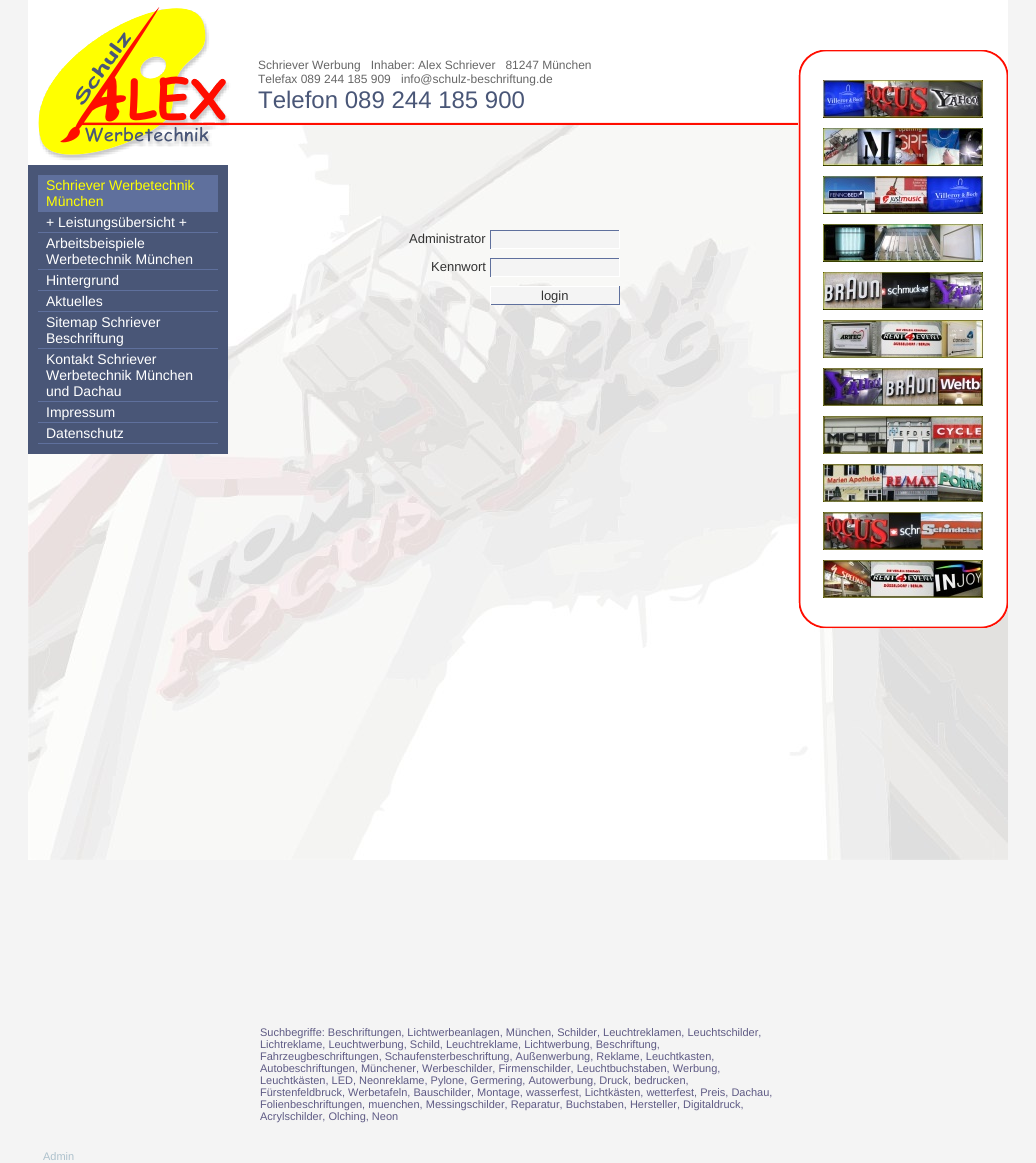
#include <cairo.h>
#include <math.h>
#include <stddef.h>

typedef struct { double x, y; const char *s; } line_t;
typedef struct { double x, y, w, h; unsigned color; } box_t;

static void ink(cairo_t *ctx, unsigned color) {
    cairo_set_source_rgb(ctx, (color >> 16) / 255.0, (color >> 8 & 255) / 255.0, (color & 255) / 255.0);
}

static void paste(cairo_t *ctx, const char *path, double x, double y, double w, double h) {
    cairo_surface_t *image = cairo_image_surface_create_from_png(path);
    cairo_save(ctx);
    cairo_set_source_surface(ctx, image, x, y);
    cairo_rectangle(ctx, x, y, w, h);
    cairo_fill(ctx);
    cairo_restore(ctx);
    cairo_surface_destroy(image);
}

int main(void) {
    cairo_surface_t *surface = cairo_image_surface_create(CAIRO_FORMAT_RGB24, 1036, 1163);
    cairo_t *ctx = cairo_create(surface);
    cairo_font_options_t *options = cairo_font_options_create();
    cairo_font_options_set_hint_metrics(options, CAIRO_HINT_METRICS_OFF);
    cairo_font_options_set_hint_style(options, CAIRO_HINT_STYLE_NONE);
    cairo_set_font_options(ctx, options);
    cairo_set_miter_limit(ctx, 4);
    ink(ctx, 0xF4F4F4);
    cairo_paint(ctx);
    paste(ctx, "media/1.png", 28, 0, 980, 860);
    paste(ctx, "media/2.png", 38, 7, 760, 155);
    paste(ctx, "media/3.png", 798, 50, 210, 25);
    paste(ctx, "media/4.png", 798, 75, 210, 528);
    paste(ctx, "media/5.png", 823, 80, 160, 38);
    paste(ctx, "media/6.png", 823, 128, 160, 38);
    paste(ctx, "media/7.png", 823, 176, 160, 38);
    paste(ctx, "media/8.png", 823, 224, 160, 38);
    paste(ctx, "media/9.png", 823, 272, 160, 38);
    paste(ctx, "media/10.png", 823, 320, 160, 38);
    paste(ctx, "media/11.png", 823, 368, 160, 38);
    paste(ctx, "media/12.png", 823, 416, 160, 38);
    paste(ctx, "media/13.png", 823, 464, 160, 38);
    paste(ctx, "media/14.png", 823, 512, 160, 38);
    paste(ctx, "media/15.png", 823, 560, 160, 38);
    paste(ctx, "media/16.png", 798, 603, 210, 26);
    cairo_select_font_face(ctx, "Liberation Sans", CAIRO_FONT_SLANT_NORMAL, CAIRO_FONT_WEIGHT_NORMAL);
    cairo_set_font_size(ctx, 12);
    ink(ctx, 0x666666);
    {
        static const line_t items[] = {
            {258, 69, "Schriever Werbung   Inhaber: Alex Schriever   81247 München"},
            {258, 83, "Telefax 089 244 185 909"},
            {401, 83, "info@schulz-beschriftung.de"},
        };
        for (size_t i = 0; i < sizeof items / sizeof *items; i++) {
            cairo_move_to(ctx, items[i].x, items[i].y);
            cairo_show_text(ctx, items[i].s);
        }
    }
    cairo_set_font_size(ctx, 24);
    ink(ctx, 0x495677);
    cairo_move_to(ctx, 258, 108);
    cairo_show_text(ctx, "Telefon 089 244 185 900");
    cairo_rectangle(ctx, 28, 165, 200, 289);
    cairo_fill(ctx);
    ink(ctx, 0x5F709D);
    cairo_rectangle(ctx, 38, 175, 180, 37);
    cairo_fill(ctx);
    cairo_set_font_size(ctx, 14);
    ink(ctx, 0xFFFF00);
    cairo_move_to(ctx, 46, 190);
    cairo_show_text(ctx, "Schriever Werbetechnik");
    cairo_move_to(ctx, 46, 206);
    cairo_show_text(ctx, "München");
    ink(ctx, 0x5F709D);
    cairo_rectangle(ctx, 38, 232, 180, 1);
    cairo_fill(ctx);
    ink(ctx, 0xFFFFFF);
    cairo_move_to(ctx, 46, 227);
    cairo_show_text(ctx, "+ Leistungsübersicht +");
    ink(ctx, 0x5F709D);
    cairo_rectangle(ctx, 38, 269, 180, 1);
    cairo_fill(ctx);
    ink(ctx, 0xFFFFFF);
    cairo_move_to(ctx, 46, 248);
    cairo_show_text(ctx, "Arbeitsbeispiele");
    cairo_move_to(ctx, 46, 264);
    cairo_show_text(ctx, "Werbetechnik München");
    ink(ctx, 0x5F709D);
    cairo_rectangle(ctx, 38, 290, 180, 1);
    cairo_fill(ctx);
    ink(ctx, 0xFFFFFF);
    cairo_move_to(ctx, 46, 285);
    cairo_show_text(ctx, "Hintergrund");
    ink(ctx, 0x5F709D);
    cairo_rectangle(ctx, 38, 311, 180, 1);
    cairo_fill(ctx);
    ink(ctx, 0xFFFFFF);
    cairo_move_to(ctx, 46, 306);
    cairo_show_text(ctx, "Aktuelles");
    ink(ctx, 0x5F709D);
    cairo_rectangle(ctx, 38, 348, 180, 1);
    cairo_fill(ctx);
    ink(ctx, 0xFFFFFF);
    cairo_move_to(ctx, 46, 327);
    cairo_show_text(ctx, "Sitemap Schriever");
    cairo_move_to(ctx, 46, 343);
    cairo_show_text(ctx, "Beschriftung");
    ink(ctx, 0x5F709D);
    cairo_rectangle(ctx, 38, 401, 180, 1);
    cairo_fill(ctx);
    ink(ctx, 0xFFFFFF);
    {
        static const line_t items[] = {
            {46, 364, "Kontakt Schriever"},
            {46, 380, "Werbetechnik München"},
            {46, 396, "und Dachau"},
        };
        for (size_t i = 0; i < sizeof items / sizeof *items; i++) {
            cairo_move_to(ctx, items[i].x, items[i].y);
            cairo_show_text(ctx, items[i].s);
        }
    }
    ink(ctx, 0x5F709D);
    cairo_rectangle(ctx, 38, 422, 180, 1);
    cairo_fill(ctx);
    ink(ctx, 0xFFFFFF);
    cairo_move_to(ctx, 46, 417);
    cairo_show_text(ctx, "Impressum");
    ink(ctx, 0x5F709D);
    cairo_rectangle(ctx, 38, 443, 180, 1);
    cairo_fill(ctx);
    ink(ctx, 0xFFFFFF);
    cairo_move_to(ctx, 46, 438);
    cairo_show_text(ctx, "Datenschutz");
    cairo_set_font_size(ctx, 13);
    ink(ctx, 0x333333);
    cairo_move_to(ctx, 409, 243);
    cairo_show_text(ctx, "Administrator");
    {
        static const box_t items[] = {
            {491, 231, 128, 17, 0xF4F4F4},
            {490, 230, 130, 1, 0x5F709D},
            {619, 230, 1, 19, 0xFFFFFF},
            {490, 248, 130, 1, 0xFFFFFF},
            {490, 230, 1, 19, 0x5F709D},
        };
        for (size_t i = 0; i < sizeof items / sizeof *items; i++) {
            ink(ctx, items[i].color);
            cairo_rectangle(ctx, items[i].x, items[i].y, items[i].w, items[i].h);
            cairo_fill(ctx);
        }
    }
    ink(ctx, 0x333333);
    cairo_move_to(ctx, 431, 271);
    cairo_show_text(ctx, "Kennwort");
    {
        static const box_t items[] = {
            {491, 259, 128, 17, 0xF4F4F4},
            {490, 258, 130, 1, 0x5F709D},
            {619, 258, 1, 19, 0xFFFFFF},
            {490, 276, 130, 1, 0xFFFFFF},
            {490, 258, 1, 19, 0x5F709D},
            {491, 287, 128, 17, 0xF4F4F4},
            {490, 286, 130, 1, 0xFFFFFF},
            {619, 286, 1, 19, 0x5F709D},
            {490, 304, 130, 1, 0x5F709D},
            {490, 286, 1, 19, 0xFFFFFF},
        };
        for (size_t i = 0; i < sizeof items / sizeof *items; i++) {
            ink(ctx, items[i].color);
            cairo_rectangle(ctx, items[i].x, items[i].y, items[i].w, items[i].h);
            cairo_fill(ctx);
        }
    }
    ink(ctx, 0x333333);
    cairo_move_to(ctx, 541, 300);
    cairo_show_text(ctx, "login");
    cairo_set_font_size(ctx, 11);
    ink(ctx, 0x5E5A84);
    {
        static const line_t items[] = {
            {260, 1036, "Suchbegriffe: Beschriftungen, Lichtwerbeanlagen, München, Schilder, Leuchtreklamen, Leuchtschilder,"},
            {260, 1048, "Lichtreklame, Leuchtwerbung, Schild, Leuchtreklame, Lichtwerbung, Beschriftung,"},
            {260, 1060, "Fahrzeugbeschriftungen, Schaufensterbeschriftung, Außenwerbung, Reklame, Leuchtkasten,"},
            {260, 1072, "Autobeschriftungen, Münchener, Werbeschilder, Firmenschilder, Leuchtbuchstaben, Werbung,"},
            {260, 1084, "Leuchtkästen, LED, Neonreklame, Pylone, Germering, Autowerbung, Druck, bedrucken,"},
            {260, 1096, "Fürstenfeldbruck, Werbetafeln, Bauschilder, Montage, wasserfest, Lichtkästen, wetterfest, Preis, Dachau,"},
            {260, 1108, "Folienbeschriftungen, muenchen, Messingschilder, Reparatur, Buchstaben, Hersteller, Digitaldruck,"},
            {260, 1120, "Acrylschilder, Olching, Neon"},
        };
        for (size_t i = 0; i < sizeof items / sizeof *items; i++) {
            cairo_move_to(ctx, items[i].x, items[i].y);
            cairo_show_text(ctx, items[i].s);
        }
    }
    ink(ctx, 0xADC1CC);
    cairo_move_to(ctx, 43, 1160);
    cairo_show_text(ctx, "Admin");
    cairo_surface_write_to_png(surface, "image.png");
    cairo_font_options_destroy(options);
    cairo_destroy(ctx);
    cairo_surface_destroy(surface);
    return 0;
}
